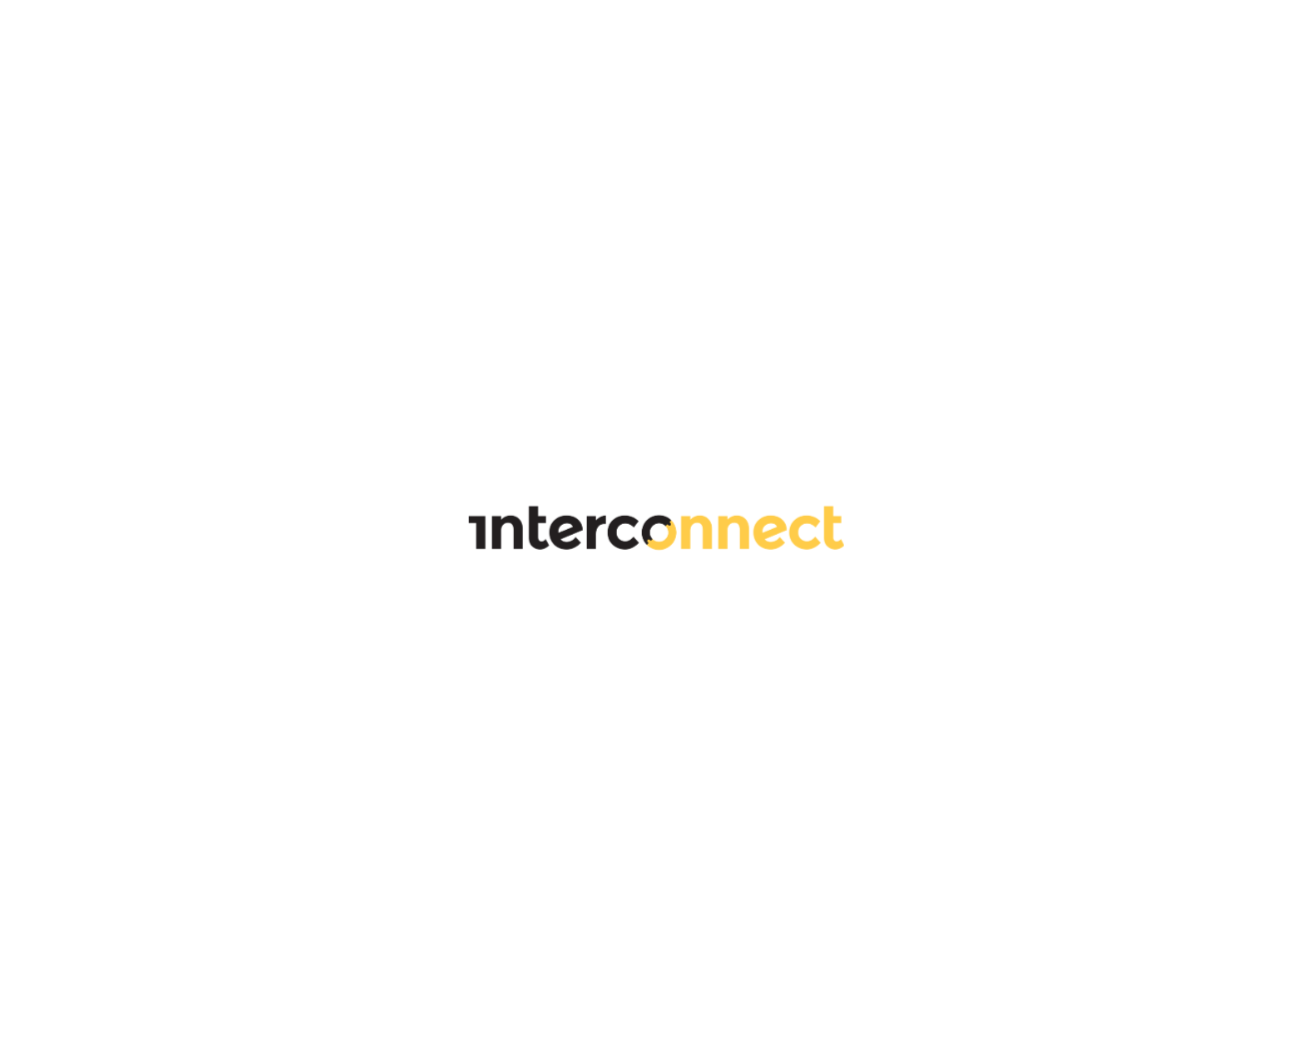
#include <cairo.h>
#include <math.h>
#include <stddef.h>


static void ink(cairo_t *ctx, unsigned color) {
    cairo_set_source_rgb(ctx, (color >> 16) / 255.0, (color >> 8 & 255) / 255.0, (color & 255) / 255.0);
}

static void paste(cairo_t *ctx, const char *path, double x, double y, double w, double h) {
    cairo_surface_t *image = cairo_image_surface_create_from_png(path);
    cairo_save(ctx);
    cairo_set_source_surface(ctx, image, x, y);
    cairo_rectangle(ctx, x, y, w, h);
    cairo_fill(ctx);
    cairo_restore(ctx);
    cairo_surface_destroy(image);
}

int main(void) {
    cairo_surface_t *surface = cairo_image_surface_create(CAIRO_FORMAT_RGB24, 1311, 1054);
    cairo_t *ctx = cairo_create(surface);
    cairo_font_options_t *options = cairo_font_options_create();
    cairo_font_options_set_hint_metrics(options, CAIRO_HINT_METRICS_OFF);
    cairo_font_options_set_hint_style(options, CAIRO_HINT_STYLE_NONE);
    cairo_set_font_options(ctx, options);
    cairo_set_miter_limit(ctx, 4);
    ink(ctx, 0xFFFFFF);
    cairo_paint(ctx);
    paste(ctx, "media/1.png", 468, 505, 376, 46);
    cairo_surface_write_to_png(surface, "image.png");
    cairo_font_options_destroy(options);
    cairo_destroy(ctx);
    cairo_surface_destroy(surface);
    return 0;
}
